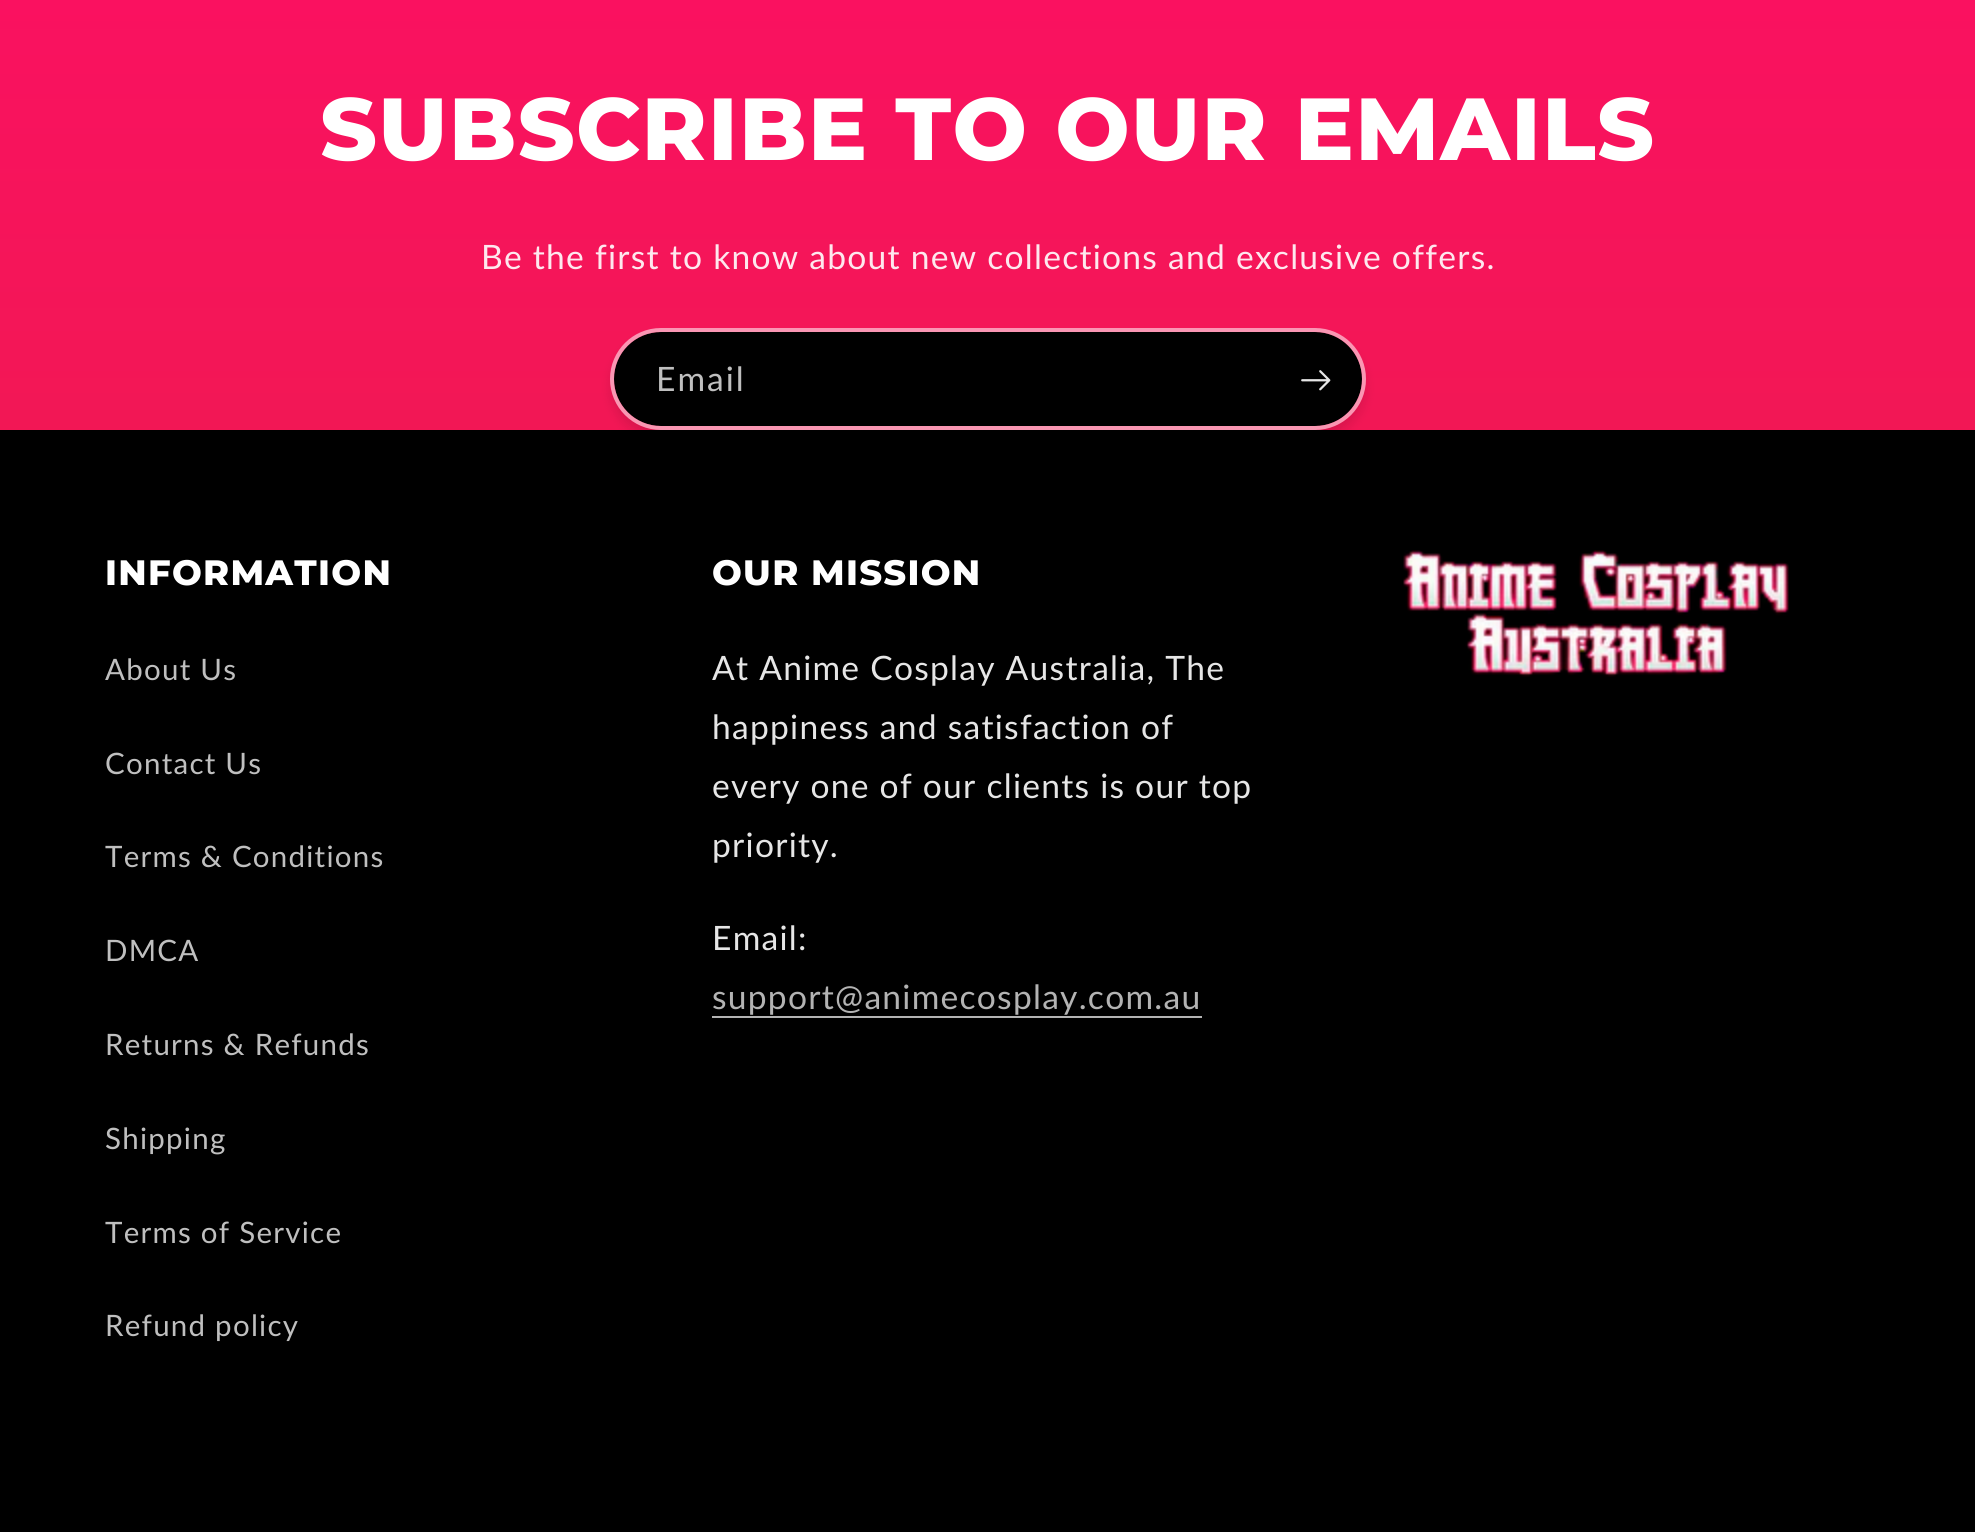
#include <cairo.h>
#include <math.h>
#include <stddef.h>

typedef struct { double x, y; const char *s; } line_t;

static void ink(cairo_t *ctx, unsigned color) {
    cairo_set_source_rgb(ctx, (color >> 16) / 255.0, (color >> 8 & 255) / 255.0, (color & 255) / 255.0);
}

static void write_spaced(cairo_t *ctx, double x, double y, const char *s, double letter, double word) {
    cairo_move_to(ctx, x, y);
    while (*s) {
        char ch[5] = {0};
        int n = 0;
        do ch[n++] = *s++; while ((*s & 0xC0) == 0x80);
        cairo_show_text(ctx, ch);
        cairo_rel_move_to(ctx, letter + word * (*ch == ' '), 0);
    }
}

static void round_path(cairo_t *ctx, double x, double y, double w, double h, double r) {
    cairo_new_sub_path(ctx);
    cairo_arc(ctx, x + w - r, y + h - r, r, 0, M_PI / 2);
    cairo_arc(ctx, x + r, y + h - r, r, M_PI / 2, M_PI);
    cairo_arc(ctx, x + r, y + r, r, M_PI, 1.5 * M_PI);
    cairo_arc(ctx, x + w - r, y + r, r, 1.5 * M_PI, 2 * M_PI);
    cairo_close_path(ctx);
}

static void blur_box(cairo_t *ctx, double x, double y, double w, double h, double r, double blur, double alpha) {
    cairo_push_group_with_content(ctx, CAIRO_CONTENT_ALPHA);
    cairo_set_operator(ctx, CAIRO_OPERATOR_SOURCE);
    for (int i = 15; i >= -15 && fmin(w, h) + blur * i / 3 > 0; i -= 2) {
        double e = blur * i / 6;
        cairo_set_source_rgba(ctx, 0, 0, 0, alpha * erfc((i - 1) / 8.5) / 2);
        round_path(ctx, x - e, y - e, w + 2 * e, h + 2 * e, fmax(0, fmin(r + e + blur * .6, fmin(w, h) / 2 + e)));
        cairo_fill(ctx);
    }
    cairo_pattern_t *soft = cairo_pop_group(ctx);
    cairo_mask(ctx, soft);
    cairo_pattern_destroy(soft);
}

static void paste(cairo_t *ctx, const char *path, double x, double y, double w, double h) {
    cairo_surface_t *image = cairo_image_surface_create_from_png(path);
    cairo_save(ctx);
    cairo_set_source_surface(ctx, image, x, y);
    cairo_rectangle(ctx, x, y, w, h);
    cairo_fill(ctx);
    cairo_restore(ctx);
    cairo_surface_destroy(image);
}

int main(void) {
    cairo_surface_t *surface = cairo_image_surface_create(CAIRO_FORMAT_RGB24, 1975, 1532);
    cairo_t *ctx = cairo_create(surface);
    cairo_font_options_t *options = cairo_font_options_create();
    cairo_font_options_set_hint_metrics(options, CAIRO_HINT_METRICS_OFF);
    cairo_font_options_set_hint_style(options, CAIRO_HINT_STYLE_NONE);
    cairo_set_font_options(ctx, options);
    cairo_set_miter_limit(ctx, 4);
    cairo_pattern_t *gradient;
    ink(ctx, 0x000000);
    cairo_paint(ctx);
    gradient = cairo_pattern_create_linear(988, 0, 988, 1532);
    cairo_pattern_add_color_stop_rgba(gradient, 0, 0.98, 0.067, 0.376, 1);
    cairo_pattern_add_color_stop_rgba(gradient, 1, 0.867, 0.153, 0.224, 1);
    cairo_set_source(ctx, gradient);
    cairo_pattern_destroy(gradient);
    cairo_rectangle(ctx, 0, 0, 1975, 430);
    cairo_fill(ctx);
    cairo_select_font_face(ctx, "Montserrat ExtraBold", CAIRO_FONT_SLANT_NORMAL, CAIRO_FONT_WEIGHT_NORMAL);
    cairo_set_font_size(ctx, 88);
    ink(ctx, 0xFFFFFF);
    write_spaced(ctx, 320, 160, "SUBSCRIBE TO OUR EMAILS", 1.3, 0);
    cairo_select_font_face(ctx, "Lato", CAIRO_FONT_SLANT_NORMAL, CAIRO_FONT_WEIGHT_NORMAL);
    cairo_set_font_size(ctx, 33.6);
    ink(ctx, 0xFEE8EE);
    write_spaced(ctx, 481, 269, "Be the first to know about new collections and exclusive offers.", 1.25, 0);
    cairo_save(ctx);
    cairo_set_fill_rule(ctx, CAIRO_FILL_RULE_EVEN_ODD);
    cairo_new_path(ctx);
    cairo_move_to(ctx, 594, 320);
    cairo_line_to(ctx, 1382, 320);
    cairo_line_to(ctx, 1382, 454);
    cairo_line_to(ctx, 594, 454);
    cairo_close_path(ctx);
    cairo_move_to(ctx, 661, 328);
    cairo_line_to(ctx, 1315, 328);
    cairo_curve_to(ctx, 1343, 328, 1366, 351, 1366, 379);
    cairo_curve_to(ctx, 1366, 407, 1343, 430, 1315, 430);
    cairo_line_to(ctx, 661, 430);
    cairo_curve_to(ctx, 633, 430, 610, 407, 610, 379);
    cairo_curve_to(ctx, 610, 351, 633, 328, 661, 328);
    cairo_close_path(ctx);
    cairo_clip(ctx);
    ink(ctx, 0x000000);
    blur_box(ctx, 610, 336, 756, 102, 51, 5, 0.1);
    cairo_restore(ctx);
    ink(ctx, 0x000000);
    round_path(ctx, 614, 332, 748, 94, 47);
    cairo_fill(ctx);
    round_path(ctx, 612, 330, 752, 98, 49);
    cairo_set_source_rgba(ctx, 1, 1, 1, 0.55);
    cairo_set_line_width(ctx, 4);
    cairo_stroke(ctx);
    ink(ctx, 0xBFBFBF);
    write_spaced(ctx, 656, 391, "Email", 2, 0);
    paste(ctx, "media/1.png", 1301, 370, 30, 21);
    cairo_select_font_face(ctx, "Montserrat ExtraBold", CAIRO_FONT_SLANT_NORMAL, CAIRO_FONT_WEIGHT_NORMAL);
    cairo_set_font_size(ctx, 35.25);
    ink(ctx, 0xFFFFFF);
    write_spaced(ctx, 105, 585, "INFORMATION", 1.3, 0);
    cairo_select_font_face(ctx, "Lato", CAIRO_FONT_SLANT_NORMAL, CAIRO_FONT_WEIGHT_NORMAL);
    cairo_set_font_size(ctx, 29.5);
    ink(ctx, 0xBFBFBF);
    {
        static const line_t items[] = {
            {105, 680, "About Us"},
            {105, 774, "Contact Us"},
            {105, 867, "Terms & Conditions"},
            {105, 961, "DMCA"},
            {105, 1055, "Returns & Refunds"},
            {105, 1149, "Shipping"},
            {105, 1243, "Terms of Service"},
            {105, 1336, "Refund policy"},
        };
        for (size_t i = 0; i < sizeof items / sizeof *items; i++) {
            write_spaced(ctx, items[i].x, items[i].y, items[i].s, 1.25, 0);
        }
    }
    cairo_select_font_face(ctx, "Montserrat ExtraBold", CAIRO_FONT_SLANT_NORMAL, CAIRO_FONT_WEIGHT_NORMAL);
    cairo_set_font_size(ctx, 35.25);
    ink(ctx, 0xFFFFFF);
    write_spaced(ctx, 712, 585, "OUR MISSION", 1.3, 0);
    cairo_select_font_face(ctx, "Lato", CAIRO_FONT_SLANT_NORMAL, CAIRO_FONT_WEIGHT_NORMAL);
    cairo_set_font_size(ctx, 33.6);
    ink(ctx, 0xE6E6E6);
    {
        static const line_t items[] = {
            {712, 680, "At Anime Cosplay Australia, The"},
            {712, 739, "happiness and satisfaction of"},
            {712, 798, "every one of our clients is our top"},
            {712, 857, "priority."},
            {712, 950, "Email:"},
        };
        for (size_t i = 0; i < sizeof items / sizeof *items; i++) {
            write_spaced(ctx, items[i].x, items[i].y, items[i].s, 1.25, 0);
        }
    }
    ink(ctx, 0xB3B3B3);
    write_spaced(ctx, 712, 1009, "support@animecosplay.com.au", 1.25, 0);
    cairo_rectangle(ctx, 712, 1016, 490, 2);
    cairo_fill(ctx);
    paste(ctx, "media/2.png", 1403, 550, 386, 127);
    cairo_surface_write_to_png(surface, "image.png");
    cairo_font_options_destroy(options);
    cairo_destroy(ctx);
    cairo_surface_destroy(surface);
    return 0;
}
